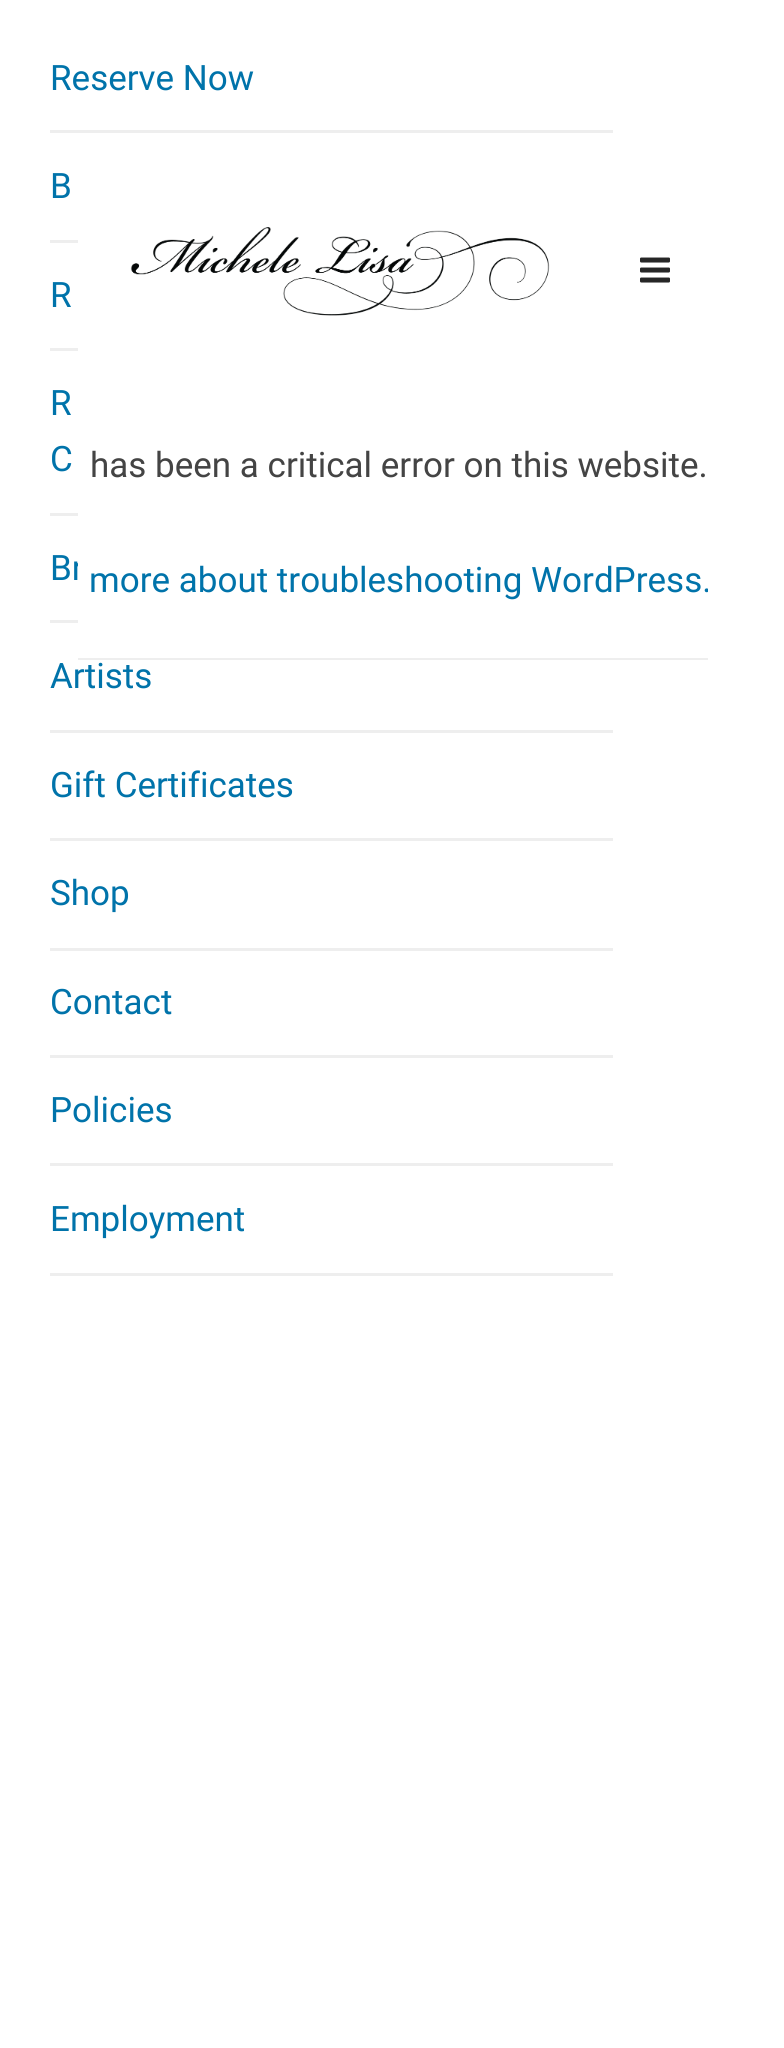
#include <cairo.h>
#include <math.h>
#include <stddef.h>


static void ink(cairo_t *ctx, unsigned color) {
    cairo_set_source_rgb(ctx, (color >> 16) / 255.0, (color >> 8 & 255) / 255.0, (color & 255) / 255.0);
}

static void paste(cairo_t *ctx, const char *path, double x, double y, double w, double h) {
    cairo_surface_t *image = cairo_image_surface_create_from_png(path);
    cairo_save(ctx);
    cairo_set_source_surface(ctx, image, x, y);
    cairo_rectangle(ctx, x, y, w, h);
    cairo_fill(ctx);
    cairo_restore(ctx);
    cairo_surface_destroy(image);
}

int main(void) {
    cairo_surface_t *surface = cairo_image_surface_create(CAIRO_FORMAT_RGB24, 784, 2048);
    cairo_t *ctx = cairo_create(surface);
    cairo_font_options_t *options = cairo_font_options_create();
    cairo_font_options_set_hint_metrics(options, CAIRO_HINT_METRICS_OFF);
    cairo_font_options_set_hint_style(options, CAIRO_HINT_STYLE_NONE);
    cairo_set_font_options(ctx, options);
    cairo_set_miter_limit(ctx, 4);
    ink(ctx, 0xFFFFFF);
    cairo_paint(ctx);
    ink(ctx, 0xEEEEEE);
    cairo_rectangle(ctx, 50, 130, 563, 3);
    cairo_fill(ctx);
    cairo_select_font_face(ctx, "Roboto", CAIRO_FONT_SLANT_NORMAL, CAIRO_FONT_WEIGHT_NORMAL);
    cairo_set_font_size(ctx, 35);
    ink(ctx, 0x0073AA);
    cairo_move_to(ctx, 50, 90);
    cairo_show_text(ctx, "Reserve Now");
    ink(ctx, 0xEEEEEE);
    cairo_rectangle(ctx, 50, 240, 28, 3);
    cairo_fill(ctx);
    ink(ctx, 0x0073AA);
    cairo_move_to(ctx, 50, 198);
    cairo_show_text(ctx, "B");
    ink(ctx, 0xEEEEEE);
    cairo_rectangle(ctx, 50, 348, 28, 3);
    cairo_fill(ctx);
    ink(ctx, 0x0073AA);
    cairo_move_to(ctx, 50, 307);
    cairo_show_text(ctx, "R");
    ink(ctx, 0xEEEEEE);
    cairo_rectangle(ctx, 50, 513, 28, 3);
    cairo_fill(ctx);
    ink(ctx, 0x0073AA);
    cairo_move_to(ctx, 50, 415);
    cairo_show_text(ctx, "R");
    cairo_move_to(ctx, 50, 471);
    cairo_show_text(ctx, "C");
    ink(ctx, 0xEEEEEE);
    cairo_rectangle(ctx, 50, 620, 28, 3);
    cairo_fill(ctx);
    ink(ctx, 0x0073AA);
    cairo_move_to(ctx, 50, 580);
    cairo_show_text(ctx, "Br");
    ink(ctx, 0xEEEEEE);
    cairo_rectangle(ctx, 50, 730, 563, 3);
    cairo_fill(ctx);
    ink(ctx, 0x0073AA);
    cairo_move_to(ctx, 50, 688);
    cairo_show_text(ctx, "Artists");
    ink(ctx, 0xEEEEEE);
    cairo_rectangle(ctx, 50, 838, 563, 3);
    cairo_fill(ctx);
    ink(ctx, 0x0073AA);
    cairo_move_to(ctx, 50, 797);
    cairo_show_text(ctx, "Gift Certificates");
    ink(ctx, 0xEEEEEE);
    cairo_rectangle(ctx, 50, 948, 563, 3);
    cairo_fill(ctx);
    ink(ctx, 0x0073AA);
    cairo_move_to(ctx, 50, 905);
    cairo_show_text(ctx, "Shop");
    ink(ctx, 0xEEEEEE);
    cairo_rectangle(ctx, 50, 1055, 563, 3);
    cairo_fill(ctx);
    ink(ctx, 0x0073AA);
    cairo_move_to(ctx, 50, 1014);
    cairo_show_text(ctx, "Contact");
    ink(ctx, 0xEEEEEE);
    cairo_rectangle(ctx, 50, 1163, 563, 3);
    cairo_fill(ctx);
    ink(ctx, 0x0073AA);
    cairo_move_to(ctx, 50, 1122);
    cairo_show_text(ctx, "Policies");
    ink(ctx, 0xEEEEEE);
    cairo_rectangle(ctx, 50, 1273, 563, 3);
    cairo_fill(ctx);
    ink(ctx, 0x0073AA);
    cairo_move_to(ctx, 50, 1231);
    cairo_show_text(ctx, "Employment");
    ink(ctx, 0xFFFFFF);
    cairo_rectangle(ctx, 78, 561, 6, 5);
    cairo_fill(ctx);
    paste(ctx, "media/1.png", 130, 227, 420, 89);
    paste(ctx, "media/2.png", 640, 257, 30, 26);
    ink(ctx, 0xEEEEEE);
    cairo_rectangle(ctx, 78, 658, 630, 2);
    cairo_fill(ctx);
    ink(ctx, 0x444444);
    cairo_move_to(ctx, 90, 477);
    cairo_show_text(ctx, "has been a critical error on this website.");
    cairo_save(ctx);
    cairo_rectangle(ctx, 78, 378, 630, 280);
    cairo_clip(ctx);
    ink(ctx, 0x0073AA);
    cairo_move_to(ctx, 89, 592);
    cairo_show_text(ctx, "more about troubleshooting WordPress.");
    cairo_restore(ctx);
    cairo_surface_write_to_png(surface, "image.png");
    cairo_font_options_destroy(options);
    cairo_destroy(ctx);
    cairo_surface_destroy(surface);
    return 0;
}
